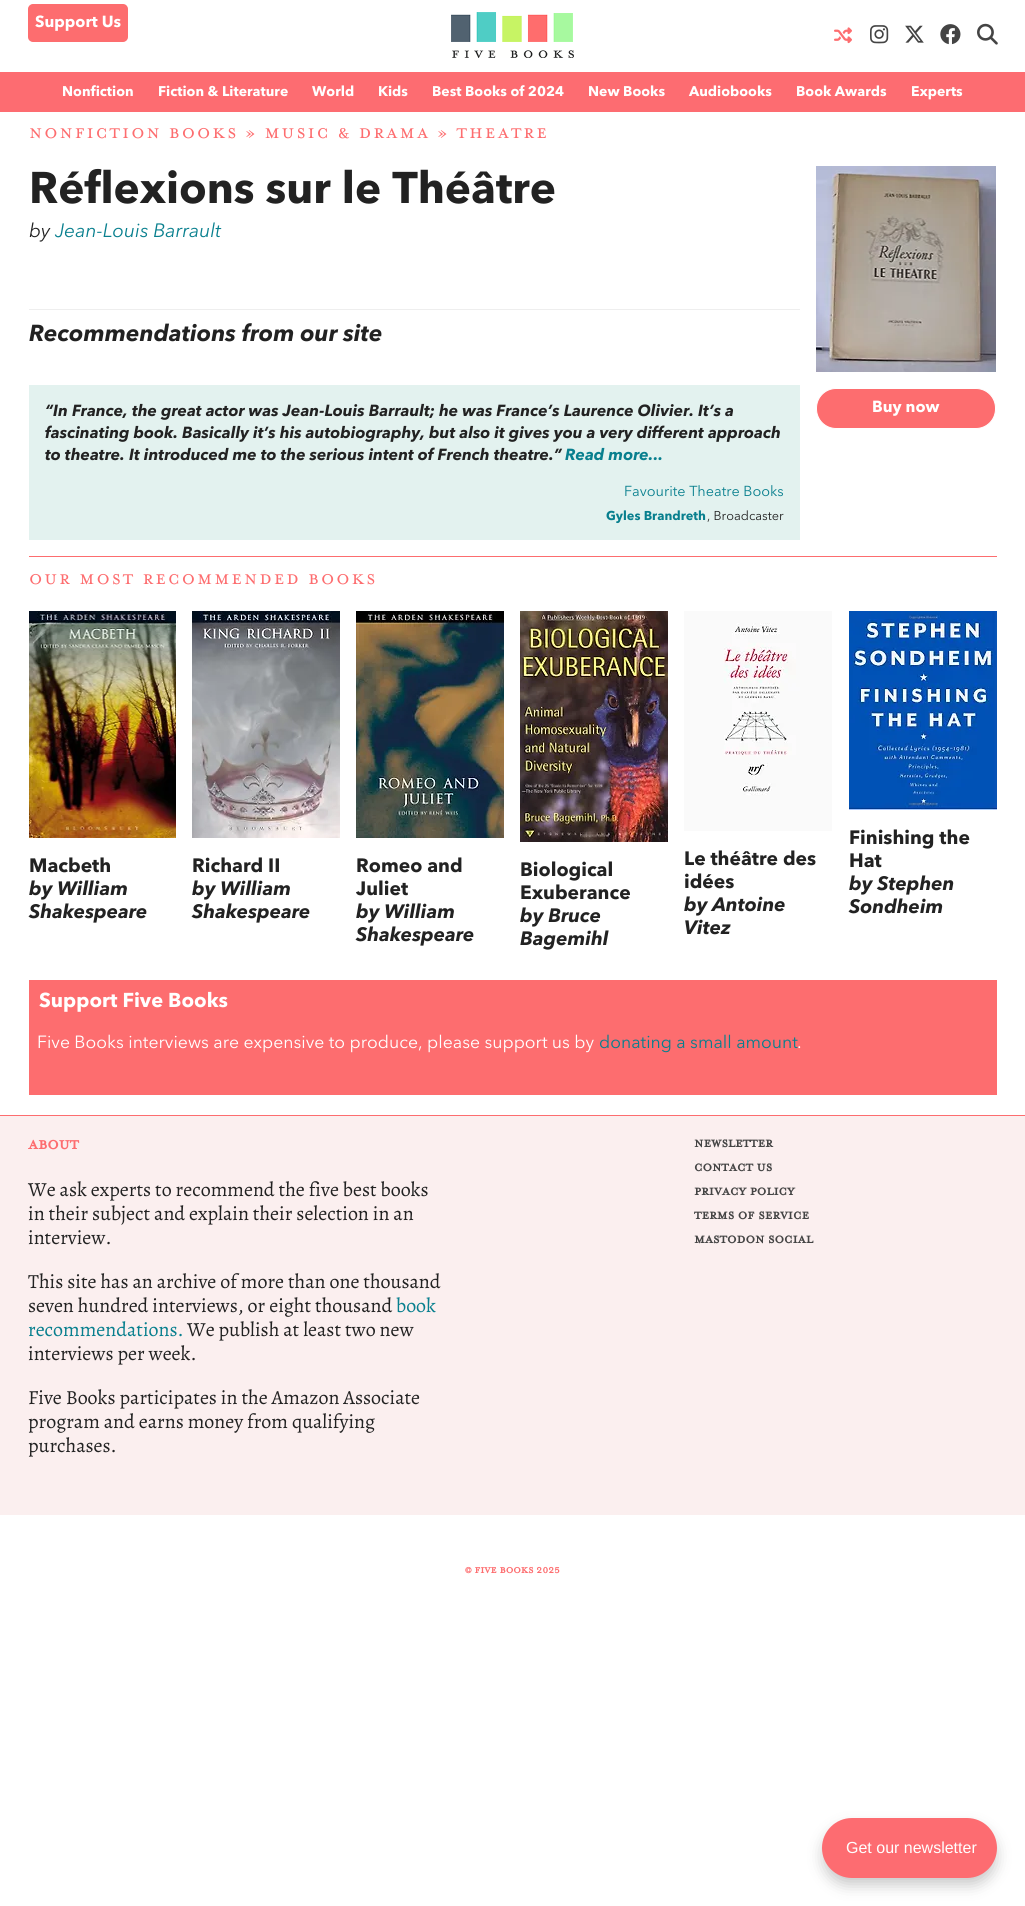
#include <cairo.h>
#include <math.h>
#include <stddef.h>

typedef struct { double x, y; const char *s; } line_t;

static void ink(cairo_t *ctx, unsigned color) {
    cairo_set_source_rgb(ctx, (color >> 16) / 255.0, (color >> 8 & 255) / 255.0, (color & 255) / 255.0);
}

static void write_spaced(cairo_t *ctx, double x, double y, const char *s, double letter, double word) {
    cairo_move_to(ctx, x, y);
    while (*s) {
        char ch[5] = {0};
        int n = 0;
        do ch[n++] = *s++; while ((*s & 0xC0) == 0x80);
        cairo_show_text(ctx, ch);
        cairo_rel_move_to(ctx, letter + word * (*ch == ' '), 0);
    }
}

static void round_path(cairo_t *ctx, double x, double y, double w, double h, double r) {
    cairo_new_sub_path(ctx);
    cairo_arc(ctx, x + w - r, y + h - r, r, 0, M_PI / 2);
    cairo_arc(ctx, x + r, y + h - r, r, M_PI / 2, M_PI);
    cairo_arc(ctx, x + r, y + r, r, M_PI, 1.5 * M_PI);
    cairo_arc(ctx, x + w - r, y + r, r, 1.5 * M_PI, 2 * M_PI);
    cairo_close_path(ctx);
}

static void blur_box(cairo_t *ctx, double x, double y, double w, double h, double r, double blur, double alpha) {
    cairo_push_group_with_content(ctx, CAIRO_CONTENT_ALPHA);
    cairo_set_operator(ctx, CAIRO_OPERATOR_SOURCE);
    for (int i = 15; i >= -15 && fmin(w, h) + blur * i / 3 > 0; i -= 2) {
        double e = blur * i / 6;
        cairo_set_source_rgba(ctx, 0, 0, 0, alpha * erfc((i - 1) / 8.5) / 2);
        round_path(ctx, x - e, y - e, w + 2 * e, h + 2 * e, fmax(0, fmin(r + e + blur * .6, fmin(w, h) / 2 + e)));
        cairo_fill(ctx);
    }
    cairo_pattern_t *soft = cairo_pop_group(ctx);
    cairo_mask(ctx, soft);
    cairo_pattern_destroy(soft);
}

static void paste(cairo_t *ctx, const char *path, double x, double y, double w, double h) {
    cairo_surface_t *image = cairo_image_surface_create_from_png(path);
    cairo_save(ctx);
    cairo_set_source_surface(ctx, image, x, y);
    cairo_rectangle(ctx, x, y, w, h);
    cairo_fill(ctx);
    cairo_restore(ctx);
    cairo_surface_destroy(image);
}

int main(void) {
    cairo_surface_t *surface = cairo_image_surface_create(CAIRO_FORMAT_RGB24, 1025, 1906);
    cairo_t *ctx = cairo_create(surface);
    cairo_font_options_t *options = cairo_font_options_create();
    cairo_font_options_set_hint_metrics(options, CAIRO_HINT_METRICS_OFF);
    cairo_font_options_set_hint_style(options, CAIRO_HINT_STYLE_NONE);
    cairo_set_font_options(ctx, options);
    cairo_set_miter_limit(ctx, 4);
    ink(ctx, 0xFFFFFF);
    cairo_paint(ctx);
    ink(ctx, 0xFD6D6F);
    round_path(ctx, 29, 5, 98, 36, 4);
    cairo_fill_preserve(ctx);
    cairo_stroke(ctx);
    cairo_select_font_face(ctx, "Avenir Next", CAIRO_FONT_SLANT_NORMAL, CAIRO_FONT_WEIGHT_BOLD);
    cairo_set_font_size(ctx, 16);
    ink(ctx, 0xFFFFFF);
    cairo_move_to(ctx, 35, 27);
    cairo_show_text(ctx, "Support Us");
    paste(ctx, "media/1.png", 451, 12, 122, 30);
    paste(ctx, "media/2.png", 834, 27, 18, 17);
    paste(ctx, "media/3.png", 870, 25, 19, 19);
    paste(ctx, "media/4.png", 905, 25, 19, 18);
    paste(ctx, "media/5.png", 940, 24, 21, 21);
    paste(ctx, "media/6.png", 977, 23, 21, 22);
    paste(ctx, "media/7.png", 452, 48, 122, 10);
    ink(ctx, 0xFD6C71);
    cairo_rectangle(ctx, 0, 72, 1025, 40);
    cairo_fill(ctx);
    cairo_set_font_size(ctx, 14);
    ink(ctx, 0xFFFFFF);
    {
        static const line_t items[] = {
            {62, 96, "Nonfiction"},
            {158, 96, "Fiction & Literature"},
            {312, 96, "World"},
            {378, 96, "Kids"},
            {432, 96, "Best Books of 2024"},
            {588, 96, "New Books"},
            {689, 96, "Audiobooks"},
            {796, 96, "Book Awards"},
            {911, 96, "Experts"},
        };
        for (size_t i = 0; i < sizeof items / sizeof *items; i++) {
            cairo_move_to(ctx, items[i].x, items[i].y);
            cairo_show_text(ctx, items[i].s);
        }
    }
    cairo_select_font_face(ctx, "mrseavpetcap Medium", CAIRO_FONT_SLANT_NORMAL, CAIRO_FONT_WEIGHT_NORMAL);
    cairo_set_font_size(ctx, 22.4);
    ink(ctx, 0xFD6D6F);
    write_spaced(ctx, 29, 138, "NONFICTION BOOKS » MUSIC & DRAMA » THEATRE", 2, 0);
    cairo_select_font_face(ctx, "Avenir Next", CAIRO_FONT_SLANT_NORMAL, CAIRO_FONT_WEIGHT_BOLD);
    cairo_set_font_size(ctx, 44);
    ink(ctx, 0x222222);
    cairo_move_to(ctx, 29, 203);
    cairo_show_text(ctx, "Réflexions sur le Théâtre");
    cairo_select_font_face(ctx, "Avenir Next", CAIRO_FONT_SLANT_ITALIC, CAIRO_FONT_WEIGHT_NORMAL);
    cairo_set_font_size(ctx, 19.25);
    cairo_move_to(ctx, 29, 237);
    cairo_show_text(ctx, "by");
    ink(ctx, 0x087F8E);
    cairo_move_to(ctx, 55, 237);
    cairo_show_text(ctx, "Jean-Louis Barrault");
    ink(ctx, 0xEEEEEE);
    cairo_rectangle(ctx, 29, 309, 771, 1);
    cairo_fill(ctx);
    cairo_select_font_face(ctx, "Avenir Next", CAIRO_FONT_SLANT_ITALIC, CAIRO_FONT_WEIGHT_BOLD);
    cairo_set_font_size(ctx, 23);
    ink(ctx, 0x222222);
    cairo_move_to(ctx, 29, 341);
    cairo_show_text(ctx, "Recommendations from our site");
    ink(ctx, 0xE3F2EF);
    cairo_rectangle(ctx, 29, 385, 771, 155);
    cairo_fill(ctx);
    cairo_set_font_size(ctx, 16);
    ink(ctx, 0x222222);
    {
        static const line_t items[] = {
            {45, 416, "“In France, the great actor was Jean-Louis Barrault; he was France’s Laurence Olivier. It’s a"},
            {45, 438, "fascinating book. Basically it’s his autobiography, but also it gives you a very different approach"},
            {45, 460, "to theatre. It introduced me to the serious intent of French theatre.”"},
        };
        for (size_t i = 0; i < sizeof items / sizeof *items; i++) {
            cairo_move_to(ctx, items[i].x, items[i].y);
            cairo_show_text(ctx, items[i].s);
        }
    }
    ink(ctx, 0x087F8E);
    cairo_move_to(ctx, 565, 460);
    cairo_show_text(ctx, "Read more...");
    cairo_select_font_face(ctx, "Avenir Next", CAIRO_FONT_SLANT_NORMAL, CAIRO_FONT_WEIGHT_NORMAL);
    cairo_set_font_size(ctx, 14.4);
    cairo_move_to(ctx, 624, 496);
    cairo_show_text(ctx, "Favourite Theatre Books");
    cairo_select_font_face(ctx, "Avenir Next", CAIRO_FONT_SLANT_NORMAL, CAIRO_FONT_WEIGHT_BOLD);
    cairo_set_font_size(ctx, 12.75);
    cairo_move_to(ctx, 606, 520);
    cairo_show_text(ctx, "Gyles Brandreth");
    cairo_select_font_face(ctx, "Avenir Next", CAIRO_FONT_SLANT_NORMAL, CAIRO_FONT_WEIGHT_NORMAL);
    ink(ctx, 0x222222);
    cairo_move_to(ctx, 707, 520);
    cairo_show_text(ctx, ", Broadcaster");
    paste(ctx, "media/8.png", 816, 166, 180, 206);
    ink(ctx, 0xFD6D6F);
    round_path(ctx, 816.5, 388.5, 179, 40, 19.5);
    cairo_fill_preserve(ctx);
    ink(ctx, 0xFFFFFF);
    cairo_set_line_width(ctx, 1);
    cairo_stroke(ctx);
    cairo_select_font_face(ctx, "Avenir Next", CAIRO_FONT_SLANT_NORMAL, CAIRO_FONT_WEIGHT_BOLD);
    cairo_set_font_size(ctx, 16);
    cairo_move_to(ctx, 872, 412);
    cairo_show_text(ctx, "Buy now");
    ink(ctx, 0xFD6D6F);
    cairo_rectangle(ctx, 29, 556, 968, 1);
    cairo_fill(ctx);
    cairo_select_font_face(ctx, "mrseavpetcap Medium", CAIRO_FONT_SLANT_NORMAL, CAIRO_FONT_WEIGHT_NORMAL);
    cairo_set_font_size(ctx, 22.4);
    write_spaced(ctx, 29, 584, "OUR MOST RECOMMENDED BOOKS", 2, 0);
    paste(ctx, "media/9.png", 29, 611, 147, 227);
    cairo_select_font_face(ctx, "Avenir Next", CAIRO_FONT_SLANT_NORMAL, CAIRO_FONT_WEIGHT_BOLD);
    cairo_set_font_size(ctx, 19.25);
    ink(ctx, 0x222222);
    cairo_move_to(ctx, 29, 872);
    cairo_show_text(ctx, "Macbeth");
    cairo_select_font_face(ctx, "Avenir Next", CAIRO_FONT_SLANT_ITALIC, CAIRO_FONT_WEIGHT_BOLD);
    cairo_move_to(ctx, 29, 895);
    cairo_show_text(ctx, "by William");
    cairo_move_to(ctx, 29, 918);
    cairo_show_text(ctx, "Shakespeare");
    paste(ctx, "media/10.png", 192, 611, 148, 227);
    cairo_select_font_face(ctx, "Avenir Next", CAIRO_FONT_SLANT_NORMAL, CAIRO_FONT_WEIGHT_BOLD);
    cairo_move_to(ctx, 192, 872);
    cairo_show_text(ctx, "Richard II");
    cairo_select_font_face(ctx, "Avenir Next", CAIRO_FONT_SLANT_ITALIC, CAIRO_FONT_WEIGHT_BOLD);
    cairo_move_to(ctx, 192, 895);
    cairo_show_text(ctx, "by William");
    cairo_move_to(ctx, 192, 918);
    cairo_show_text(ctx, "Shakespeare");
    paste(ctx, "media/11.png", 356, 611, 148, 227);
    cairo_select_font_face(ctx, "Avenir Next", CAIRO_FONT_SLANT_NORMAL, CAIRO_FONT_WEIGHT_BOLD);
    cairo_move_to(ctx, 356, 872);
    cairo_show_text(ctx, "Romeo and");
    cairo_move_to(ctx, 356, 895);
    cairo_show_text(ctx, "Juliet");
    cairo_select_font_face(ctx, "Avenir Next", CAIRO_FONT_SLANT_ITALIC, CAIRO_FONT_WEIGHT_BOLD);
    cairo_move_to(ctx, 356, 918);
    cairo_show_text(ctx, "by William");
    cairo_move_to(ctx, 356, 941);
    cairo_show_text(ctx, "Shakespeare");
    paste(ctx, "media/12.png", 520, 611, 148, 231);
    cairo_select_font_face(ctx, "Avenir Next", CAIRO_FONT_SLANT_NORMAL, CAIRO_FONT_WEIGHT_BOLD);
    cairo_move_to(ctx, 520, 876);
    cairo_show_text(ctx, "Biological");
    cairo_move_to(ctx, 520, 899);
    cairo_show_text(ctx, "Exuberance");
    cairo_select_font_face(ctx, "Avenir Next", CAIRO_FONT_SLANT_ITALIC, CAIRO_FONT_WEIGHT_BOLD);
    cairo_move_to(ctx, 520, 922);
    cairo_show_text(ctx, "by Bruce");
    cairo_move_to(ctx, 520, 945);
    cairo_show_text(ctx, "Bagemihl");
    paste(ctx, "media/13.png", 684, 611, 148, 220);
    cairo_select_font_face(ctx, "Avenir Next", CAIRO_FONT_SLANT_NORMAL, CAIRO_FONT_WEIGHT_BOLD);
    cairo_move_to(ctx, 684, 865);
    cairo_show_text(ctx, "Le théâtre des");
    cairo_move_to(ctx, 684, 888);
    cairo_show_text(ctx, "idées");
    cairo_select_font_face(ctx, "Avenir Next", CAIRO_FONT_SLANT_ITALIC, CAIRO_FONT_WEIGHT_BOLD);
    cairo_move_to(ctx, 684, 911);
    cairo_show_text(ctx, "by Antoine");
    cairo_move_to(ctx, 684, 934);
    cairo_show_text(ctx, "Vitez");
    paste(ctx, "media/14.png", 849, 611, 148, 199);
    cairo_select_font_face(ctx, "Avenir Next", CAIRO_FONT_SLANT_NORMAL, CAIRO_FONT_WEIGHT_BOLD);
    cairo_move_to(ctx, 849, 844);
    cairo_show_text(ctx, "Finishing the");
    cairo_move_to(ctx, 849, 867);
    cairo_show_text(ctx, "Hat");
    cairo_select_font_face(ctx, "Avenir Next", CAIRO_FONT_SLANT_ITALIC, CAIRO_FONT_WEIGHT_BOLD);
    cairo_move_to(ctx, 849, 890);
    cairo_show_text(ctx, "by Stephen");
    cairo_move_to(ctx, 849, 913);
    cairo_show_text(ctx, "Sondheim");
    ink(ctx, 0xFD6D6F);
    cairo_rectangle(ctx, 29, 980, 968, 115);
    cairo_fill(ctx);
    cairo_select_font_face(ctx, "Avenir Next", CAIRO_FONT_SLANT_NORMAL, CAIRO_FONT_WEIGHT_BOLD);
    cairo_set_font_size(ctx, 20);
    ink(ctx, 0xFFFFFF);
    cairo_move_to(ctx, 39, 1007);
    cairo_show_text(ctx, "Support Five Books");
    cairo_select_font_face(ctx, "Avenir Next", CAIRO_FONT_SLANT_NORMAL, CAIRO_FONT_WEIGHT_NORMAL);
    cairo_set_font_size(ctx, 17.6);
    cairo_move_to(ctx, 37, 1048);
    cairo_show_text(ctx, "Five Books interviews are expensive to produce, please support us by");
    ink(ctx, 0x087F8E);
    cairo_move_to(ctx, 599, 1048);
    cairo_show_text(ctx, "donating a small amount");
    ink(ctx, 0xFFFFFF);
    cairo_move_to(ctx, 797, 1048);
    cairo_show_text(ctx, ".");
    ink(ctx, 0xFBEFEF);
    cairo_rectangle(ctx, 0, 1116, 1025, 399);
    cairo_fill(ctx);
    ink(ctx, 0xFD6D6F);
    cairo_rectangle(ctx, 0, 1115, 1025, 1);
    cairo_fill(ctx);
    cairo_select_font_face(ctx, "mrseavpetcap", CAIRO_FONT_SLANT_NORMAL, CAIRO_FONT_WEIGHT_BOLD);
    cairo_set_font_size(ctx, 19.25);
    cairo_move_to(ctx, 28, 1149);
    cairo_show_text(ctx, "ABOUT");
    cairo_select_font_face(ctx, "Alegreya", CAIRO_FONT_SLANT_NORMAL, CAIRO_FONT_WEIGHT_NORMAL);
    cairo_set_font_size(ctx, 20);
    ink(ctx, 0x222222);
    {
        static const line_t items[] = {
            {28, 1196, "We ask experts to recommend the five best books"},
            {28, 1220, "in their subject and explain their selection in an"},
            {28, 1244, "interview."},
            {28, 1288, "This site has an archive of more than one thousand"},
            {28, 1312, "seven hundred interviews, or eight thousand"},
        };
        for (size_t i = 0; i < sizeof items / sizeof *items; i++) {
            cairo_move_to(ctx, items[i].x, items[i].y);
            cairo_show_text(ctx, items[i].s);
        }
    }
    ink(ctx, 0x087F8E);
    cairo_move_to(ctx, 396, 1312);
    cairo_show_text(ctx, "book");
    cairo_move_to(ctx, 28, 1336);
    cairo_show_text(ctx, "recommendations.");
    ink(ctx, 0x222222);
    {
        static const line_t items[] = {
            {187, 1336, "We publish at least two new"},
            {28, 1360, "interviews per week."},
            {28, 1404, "Five Books participates in the Amazon Associate"},
            {28, 1428, "program and earns money from qualifying"},
            {28, 1452, "purchases."},
        };
        for (size_t i = 0; i < sizeof items / sizeof *items; i++) {
            cairo_move_to(ctx, items[i].x, items[i].y);
            cairo_show_text(ctx, items[i].s);
        }
    }
    cairo_select_font_face(ctx, "mrseavpetcap", CAIRO_FONT_SLANT_NORMAL, CAIRO_FONT_WEIGHT_BOLD);
    cairo_set_font_size(ctx, 16);
    ink(ctx, 0x444444);
    {
        static const line_t items[] = {
            {694, 1147, "NEWSLETTER"},
            {694, 1171, "CONTACT US"},
            {694, 1195, "PRIVACY POLICY"},
            {694, 1219, "TERMS OF SERVICE"},
            {694, 1243, "MASTODON SOCIAL"},
        };
        for (size_t i = 0; i < sizeof items / sizeof *items; i++) {
            cairo_move_to(ctx, items[i].x, items[i].y);
            cairo_show_text(ctx, items[i].s);
        }
    }
    cairo_set_font_size(ctx, 12.75);
    ink(ctx, 0xFD6D6F);
    cairo_move_to(ctx, 465, 1573);
    cairo_show_text(ctx, "© FIVE BOOKS 2025");
    ink(ctx, 0x000000);
    blur_box(ctx, 824, 1828, 171, 56, 28, 8, 0.24);
    ink(ctx, 0xFD6C71);
    round_path(ctx, 822, 1818, 175, 60, 30);
    cairo_fill(ctx);
    cairo_select_font_face(ctx, "Liberation Sans", CAIRO_FONT_SLANT_NORMAL, CAIRO_FONT_WEIGHT_NORMAL);
    cairo_set_font_size(ctx, 16);
    ink(ctx, 0xFFFFFF);
    cairo_move_to(ctx, 846, 1853);
    cairo_show_text(ctx, "Get our newsletter");
    cairo_surface_write_to_png(surface, "image.png");
    cairo_font_options_destroy(options);
    cairo_destroy(ctx);
    cairo_surface_destroy(surface);
    return 0;
}
